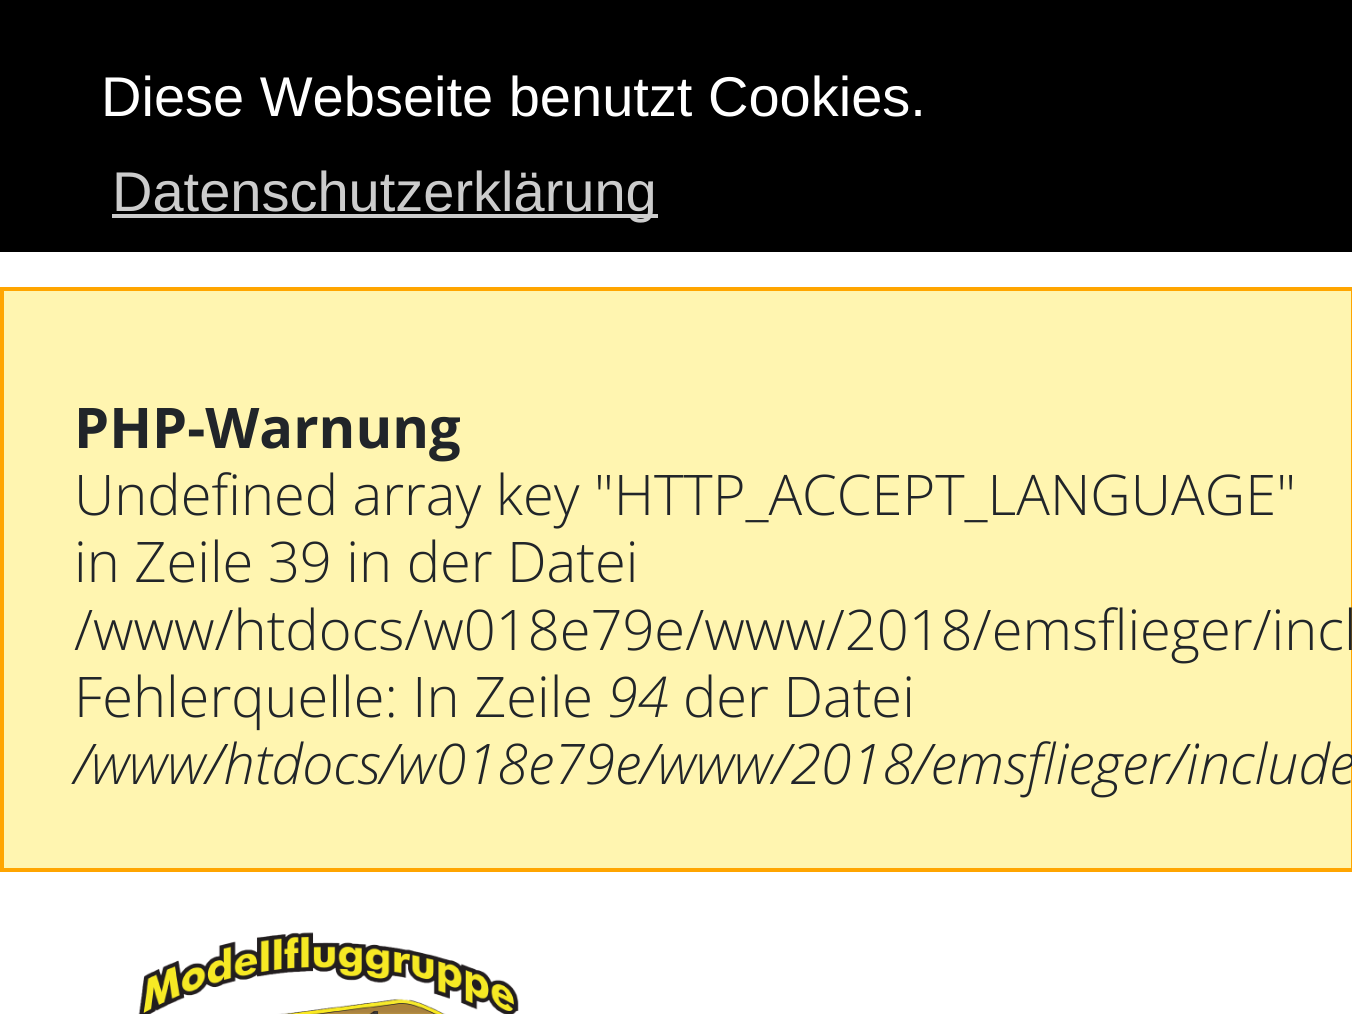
#include <cairo.h>
#include <math.h>
#include <stddef.h>

typedef struct { double x, y; const char *s; } line_t;

static void ink(cairo_t *ctx, unsigned color) {
    cairo_set_source_rgb(ctx, (color >> 16) / 255.0, (color >> 8 & 255) / 255.0, (color & 255) / 255.0);
}

static void paste(cairo_t *ctx, const char *path, double x, double y, double w, double h) {
    cairo_surface_t *image = cairo_image_surface_create_from_png(path);
    cairo_save(ctx);
    cairo_set_source_surface(ctx, image, x, y);
    cairo_rectangle(ctx, x, y, w, h);
    cairo_fill(ctx);
    cairo_restore(ctx);
    cairo_surface_destroy(image);
}

int main(void) {
    cairo_surface_t *surface = cairo_image_surface_create(CAIRO_FORMAT_RGB24, 1352, 1014);
    cairo_t *ctx = cairo_create(surface);
    cairo_font_options_t *options = cairo_font_options_create();
    cairo_font_options_set_hint_metrics(options, CAIRO_HINT_METRICS_OFF);
    cairo_font_options_set_hint_style(options, CAIRO_HINT_STYLE_NONE);
    cairo_set_font_options(ctx, options);
    cairo_set_miter_limit(ctx, 4);
    ink(ctx, 0xFFFFFF);
    cairo_paint(ctx);
    ink(ctx, 0x000000);
    cairo_rectangle(ctx, 0, 0, 1352, 252);
    cairo_fill(ctx);
    cairo_select_font_face(ctx, "Liberation Sans", CAIRO_FONT_SLANT_NORMAL, CAIRO_FONT_WEIGHT_NORMAL);
    cairo_set_font_size(ctx, 56);
    ink(ctx, 0xFFFFFF);
    cairo_move_to(ctx, 101, 116);
    cairo_show_text(ctx, "Diese Webseite benutzt Cookies.");
    ink(ctx, 0xCCCCCC);
    cairo_rectangle(ctx, 112, 214, 546, 4);
    cairo_fill(ctx);
    cairo_move_to(ctx, 112, 211);
    cairo_show_text(ctx, "Datenschutzerklärung");
    ink(ctx, 0xFFF5B0);
    cairo_rectangle(ctx, 2, 289, 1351, 581);
    cairo_fill_preserve(ctx);
    ink(ctx, 0xFFA500);
    cairo_set_line_width(ctx, 4);
    cairo_stroke(ctx);
    cairo_select_font_face(ctx, "Open Sans", CAIRO_FONT_SLANT_NORMAL, CAIRO_FONT_WEIGHT_BOLD);
    ink(ctx, 0x212529);
    cairo_move_to(ctx, 74, 448);
    cairo_show_text(ctx, "PHP-Warnung");
    cairo_select_font_face(ctx, "Open Sans Light", CAIRO_FONT_SLANT_NORMAL, CAIRO_FONT_WEIGHT_NORMAL);
    {
        static const line_t items[] = {
            {74, 515, "Undefined array key \"HTTP_ACCEPT_LANGUAGE\""},
            {74, 582, "in Zeile 39 in der Datei"},
            {74, 650, "/www/htdocs/w018e79e/www/2018/emsflieger/incl"},
            {74, 717, "Fehlerquelle: In Zeile"},
        };
        for (size_t i = 0; i < sizeof items / sizeof *items; i++) {
            cairo_move_to(ctx, items[i].x, items[i].y);
            cairo_show_text(ctx, items[i].s);
        }
    }
    cairo_select_font_face(ctx, "Open Sans Light", CAIRO_FONT_SLANT_ITALIC, CAIRO_FONT_WEIGHT_NORMAL);
    cairo_move_to(ctx, 607, 717);
    cairo_show_text(ctx, "94");
    cairo_select_font_face(ctx, "Open Sans Light", CAIRO_FONT_SLANT_NORMAL, CAIRO_FONT_WEIGHT_NORMAL);
    cairo_move_to(ctx, 683, 717);
    cairo_show_text(ctx, "der Datei");
    cairo_select_font_face(ctx, "Open Sans Light", CAIRO_FONT_SLANT_ITALIC, CAIRO_FONT_WEIGHT_NORMAL);
    cairo_move_to(ctx, 74, 784);
    cairo_show_text(ctx, "/www/htdocs/w018e79e/www/2018/emsflieger/include");
    paste(ctx, "media/1.png", 138, 932, 381, 82);
    cairo_surface_write_to_png(surface, "image.png");
    cairo_font_options_destroy(options);
    cairo_destroy(ctx);
    cairo_surface_destroy(surface);
    return 0;
}
